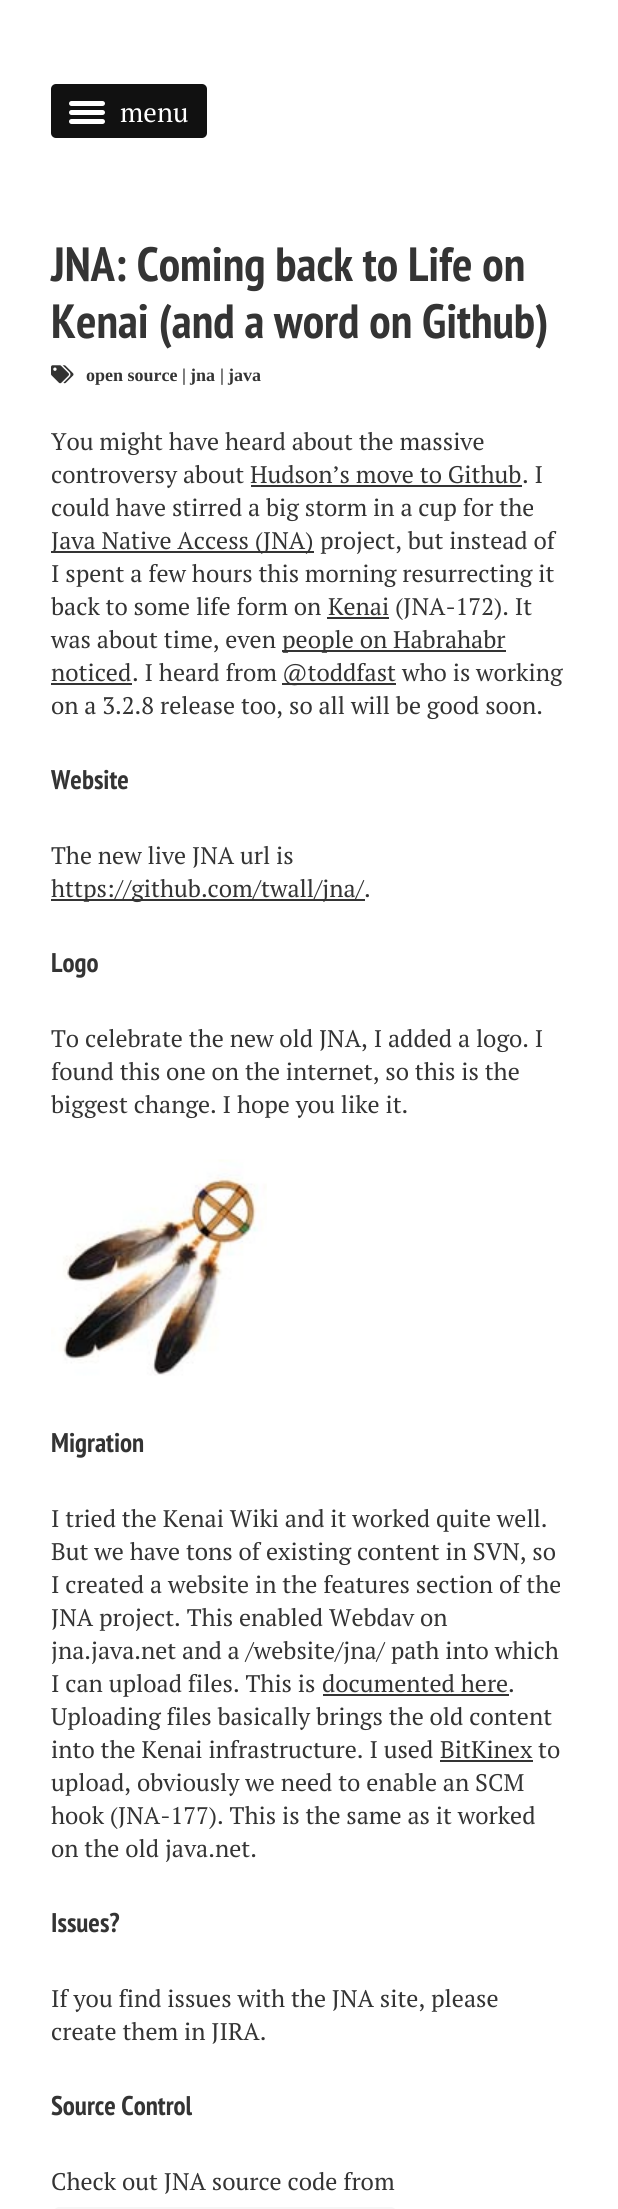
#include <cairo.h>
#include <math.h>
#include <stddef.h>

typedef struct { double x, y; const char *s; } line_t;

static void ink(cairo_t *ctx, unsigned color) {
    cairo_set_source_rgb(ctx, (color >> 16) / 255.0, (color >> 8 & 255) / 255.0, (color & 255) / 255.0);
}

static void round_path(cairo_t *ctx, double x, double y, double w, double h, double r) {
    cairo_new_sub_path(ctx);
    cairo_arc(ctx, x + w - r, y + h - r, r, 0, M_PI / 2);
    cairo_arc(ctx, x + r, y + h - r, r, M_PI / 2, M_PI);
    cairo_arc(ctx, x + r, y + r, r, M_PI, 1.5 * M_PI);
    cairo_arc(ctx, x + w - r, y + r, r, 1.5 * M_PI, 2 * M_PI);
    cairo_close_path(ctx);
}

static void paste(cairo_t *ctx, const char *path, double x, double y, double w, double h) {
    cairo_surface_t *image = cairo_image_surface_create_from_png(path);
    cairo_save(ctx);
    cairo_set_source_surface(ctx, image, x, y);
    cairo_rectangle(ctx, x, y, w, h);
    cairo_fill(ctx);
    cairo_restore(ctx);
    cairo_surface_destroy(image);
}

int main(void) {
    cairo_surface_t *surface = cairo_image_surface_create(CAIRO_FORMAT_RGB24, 618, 2209);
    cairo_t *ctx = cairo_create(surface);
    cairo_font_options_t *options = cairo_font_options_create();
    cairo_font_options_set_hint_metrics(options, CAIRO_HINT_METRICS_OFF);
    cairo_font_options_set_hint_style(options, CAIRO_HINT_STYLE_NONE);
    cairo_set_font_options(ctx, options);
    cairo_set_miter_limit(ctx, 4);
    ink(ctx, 0xFFFFFF);
    cairo_paint(ctx);
    ink(ctx, 0x111111);
    round_path(ctx, 51, 84, 156, 54, 5);
    cairo_fill(ctx);
    ink(ctx, 0xFFFFFF);
    round_path(ctx, 69, 110, 36, 5, 2.5);
    cairo_fill(ctx);
    round_path(ctx, 69, 101, 36, 5, 2.5);
    cairo_fill(ctx);
    round_path(ctx, 69, 119, 36, 5, 2.5);
    cairo_fill(ctx);
    cairo_select_font_face(ctx, "PT Serif", CAIRO_FONT_SLANT_NORMAL, CAIRO_FONT_WEIGHT_NORMAL);
    cairo_set_font_size(ctx, 27);
    cairo_move_to(ctx, 120, 122);
    cairo_show_text(ctx, "menu");
    cairo_select_font_face(ctx, "PT Sans Narrow", CAIRO_FONT_SLANT_NORMAL, CAIRO_FONT_WEIGHT_BOLD);
    cairo_set_font_size(ctx, 48);
    ink(ctx, 0x343434);
    cairo_move_to(ctx, 51, 281);
    cairo_show_text(ctx, "JNA: Coming back to Life on");
    cairo_move_to(ctx, 51, 338);
    cairo_show_text(ctx, "Kenai (and a word on Github)");
    paste(ctx, "media/1.png", 51, 365, 23, 19);
    cairo_select_font_face(ctx, "Liberation Serif", CAIRO_FONT_SLANT_NORMAL, CAIRO_FONT_WEIGHT_BOLD);
    cairo_set_font_size(ctx, 18);
    {
        static const line_t items[] = {
            {86, 381, "open source"},
            {182, 381, "|"},
            {190, 381, "jna"},
            {220, 381, "|"},
            {228, 381, "java"},
        };
        for (size_t i = 0; i < sizeof items / sizeof *items; i++) {
            cairo_move_to(ctx, items[i].x, items[i].y);
            cairo_show_text(ctx, items[i].s);
        }
    }
    cairo_select_font_face(ctx, "PT Serif", CAIRO_FONT_SLANT_NORMAL, CAIRO_FONT_WEIGHT_NORMAL);
    cairo_set_font_size(ctx, 24);
    {
        static const line_t items[] = {
            {51, 450, "You might have heard about the massive"},
            {51, 483, "controversy about"},
            {250, 483, "Hudson’s move to Github"},
        };
        for (size_t i = 0; i < sizeof items / sizeof *items; i++) {
            cairo_move_to(ctx, items[i].x, items[i].y);
            cairo_show_text(ctx, items[i].s);
        }
    }
    cairo_rectangle(ctx, 251, 485, 271, 2);
    cairo_fill(ctx);
    cairo_move_to(ctx, 522, 483);
    cairo_show_text(ctx, ". I");
    cairo_move_to(ctx, 51, 516);
    cairo_show_text(ctx, "could have stirred a big storm in a cup for the");
    cairo_rectangle(ctx, 51, 551, 263, 2);
    cairo_fill(ctx);
    {
        static const line_t items[] = {
            {51, 549, "Java Native Access (JNA)"},
            {320, 549, "project, but instead of"},
            {51, 582, "I spent a few hours this morning resurrecting it"},
            {51, 615, "back to some life form on"},
            {328, 615, "Kenai"},
        };
        for (size_t i = 0; i < sizeof items / sizeof *items; i++) {
            cairo_move_to(ctx, items[i].x, items[i].y);
            cairo_show_text(ctx, items[i].s);
        }
    }
    cairo_rectangle(ctx, 327, 617, 62, 2);
    cairo_fill(ctx);
    cairo_move_to(ctx, 395, 615);
    cairo_show_text(ctx, "(JNA-172). It");
    cairo_move_to(ctx, 51, 648);
    cairo_show_text(ctx, "was about time, even");
    cairo_rectangle(ctx, 282, 650, 224, 2);
    cairo_fill(ctx);
    cairo_move_to(ctx, 282, 648);
    cairo_show_text(ctx, "people on Habrahabr");
    cairo_move_to(ctx, 51, 681);
    cairo_show_text(ctx, "noticed");
    cairo_rectangle(ctx, 51, 683, 81, 2);
    cairo_fill(ctx);
    cairo_move_to(ctx, 132, 681);
    cairo_show_text(ctx, ". I heard from");
    cairo_rectangle(ctx, 282, 683, 114, 2);
    cairo_fill(ctx);
    {
        static const line_t items[] = {
            {282, 681, "@toddfast"},
            {402, 681, "who is working"},
            {51, 714, "on a 3.2.8 release too, so all will be good soon."},
        };
        for (size_t i = 0; i < sizeof items / sizeof *items; i++) {
            cairo_move_to(ctx, items[i].x, items[i].y);
            cairo_show_text(ctx, items[i].s);
        }
    }
    cairo_select_font_face(ctx, "PT Sans Narrow", CAIRO_FONT_SLANT_NORMAL, CAIRO_FONT_WEIGHT_BOLD);
    cairo_set_font_size(ctx, 27);
    cairo_move_to(ctx, 51, 789);
    cairo_show_text(ctx, "Website");
    cairo_select_font_face(ctx, "PT Serif", CAIRO_FONT_SLANT_NORMAL, CAIRO_FONT_WEIGHT_NORMAL);
    cairo_set_font_size(ctx, 24);
    cairo_move_to(ctx, 51, 864);
    cairo_show_text(ctx, "The new live JNA url is");
    cairo_rectangle(ctx, 51, 899, 314, 2);
    cairo_fill(ctx);
    cairo_move_to(ctx, 51, 897);
    cairo_show_text(ctx, "https://github.com/twall/jna/");
    cairo_move_to(ctx, 364, 897);
    cairo_show_text(ctx, ".");
    cairo_select_font_face(ctx, "PT Sans Narrow", CAIRO_FONT_SLANT_NORMAL, CAIRO_FONT_WEIGHT_BOLD);
    cairo_set_font_size(ctx, 27);
    cairo_move_to(ctx, 51, 972);
    cairo_show_text(ctx, "Logo");
    cairo_select_font_face(ctx, "PT Serif", CAIRO_FONT_SLANT_NORMAL, CAIRO_FONT_WEIGHT_NORMAL);
    cairo_set_font_size(ctx, 24);
    {
        static const line_t items[] = {
            {51, 1047, "To celebrate the new old JNA, I added a logo. I"},
            {51, 1080, "found this one on the internet, so this is the"},
            {51, 1113, "biggest change. I hope you like it."},
        };
        for (size_t i = 0; i < sizeof items / sizeof *items; i++) {
            cairo_move_to(ctx, items[i].x, items[i].y);
            cairo_show_text(ctx, items[i].s);
        }
    }
    paste(ctx, "media/2.png", 51, 1159, 216, 217);
    cairo_select_font_face(ctx, "PT Sans Narrow", CAIRO_FONT_SLANT_NORMAL, CAIRO_FONT_WEIGHT_BOLD);
    cairo_set_font_size(ctx, 27);
    cairo_move_to(ctx, 51, 1452);
    cairo_show_text(ctx, "Migration");
    cairo_select_font_face(ctx, "PT Serif", CAIRO_FONT_SLANT_NORMAL, CAIRO_FONT_WEIGHT_NORMAL);
    cairo_set_font_size(ctx, 24);
    {
        static const line_t items[] = {
            {51, 1527, "I tried the Kenai Wiki and it worked quite well."},
            {51, 1560, "But we have tons of existing content in SVN, so"},
            {51, 1593, "I created a website in the features section of the"},
            {51, 1626, "JNA project. This enabled Webdav on"},
            {51, 1659, "jna.java.net and a /website/jna/ path into which"},
            {51, 1692, "I can upload files. This is"},
            {322, 1692, "documented here"},
        };
        for (size_t i = 0; i < sizeof items / sizeof *items; i++) {
            cairo_move_to(ctx, items[i].x, items[i].y);
            cairo_show_text(ctx, items[i].s);
        }
    }
    cairo_rectangle(ctx, 323, 1694, 186, 2);
    cairo_fill(ctx);
    {
        static const line_t items[] = {
            {508, 1692, "."},
            {51, 1725, "Uploading files basically brings the old content"},
            {51, 1758, "into the Kenai infrastructure. I used"},
            {440, 1758, "BitKinex"},
        };
        for (size_t i = 0; i < sizeof items / sizeof *items; i++) {
            cairo_move_to(ctx, items[i].x, items[i].y);
            cairo_show_text(ctx, items[i].s);
        }
    }
    cairo_rectangle(ctx, 440, 1760, 93, 2);
    cairo_fill(ctx);
    {
        static const line_t items[] = {
            {538, 1758, "to"},
            {51, 1791, "upload, obviously we need to enable an SCM"},
            {51, 1824, "hook (JNA-177). This is the same as it worked"},
            {51, 1857, "on the old java.net."},
        };
        for (size_t i = 0; i < sizeof items / sizeof *items; i++) {
            cairo_move_to(ctx, items[i].x, items[i].y);
            cairo_show_text(ctx, items[i].s);
        }
    }
    cairo_select_font_face(ctx, "PT Sans Narrow", CAIRO_FONT_SLANT_NORMAL, CAIRO_FONT_WEIGHT_BOLD);
    cairo_set_font_size(ctx, 27);
    cairo_move_to(ctx, 51, 1932);
    cairo_show_text(ctx, "Issues?");
    cairo_select_font_face(ctx, "PT Serif", CAIRO_FONT_SLANT_NORMAL, CAIRO_FONT_WEIGHT_NORMAL);
    cairo_set_font_size(ctx, 24);
    cairo_move_to(ctx, 51, 2007);
    cairo_show_text(ctx, "If you find issues with the JNA site, please");
    cairo_move_to(ctx, 51, 2040);
    cairo_show_text(ctx, "create them in JIRA.");
    cairo_select_font_face(ctx, "PT Sans Narrow", CAIRO_FONT_SLANT_NORMAL, CAIRO_FONT_WEIGHT_BOLD);
    cairo_set_font_size(ctx, 27);
    cairo_move_to(ctx, 51, 2115);
    cairo_show_text(ctx, "Source Control");
    cairo_select_font_face(ctx, "PT Serif", CAIRO_FONT_SLANT_NORMAL, CAIRO_FONT_WEIGHT_NORMAL);
    cairo_set_font_size(ctx, 24);
    cairo_move_to(ctx, 51, 2190);
    cairo_show_text(ctx, "Check out JNA source code from");
    round_path(ctx, 55, 2208, 340, 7, 4);
    ink(ctx, 0xF7F7F7);
    cairo_stroke(ctx);
    cairo_surface_write_to_png(surface, "image.png");
    cairo_font_options_destroy(options);
    cairo_destroy(ctx);
    cairo_surface_destroy(surface);
    return 0;
}
